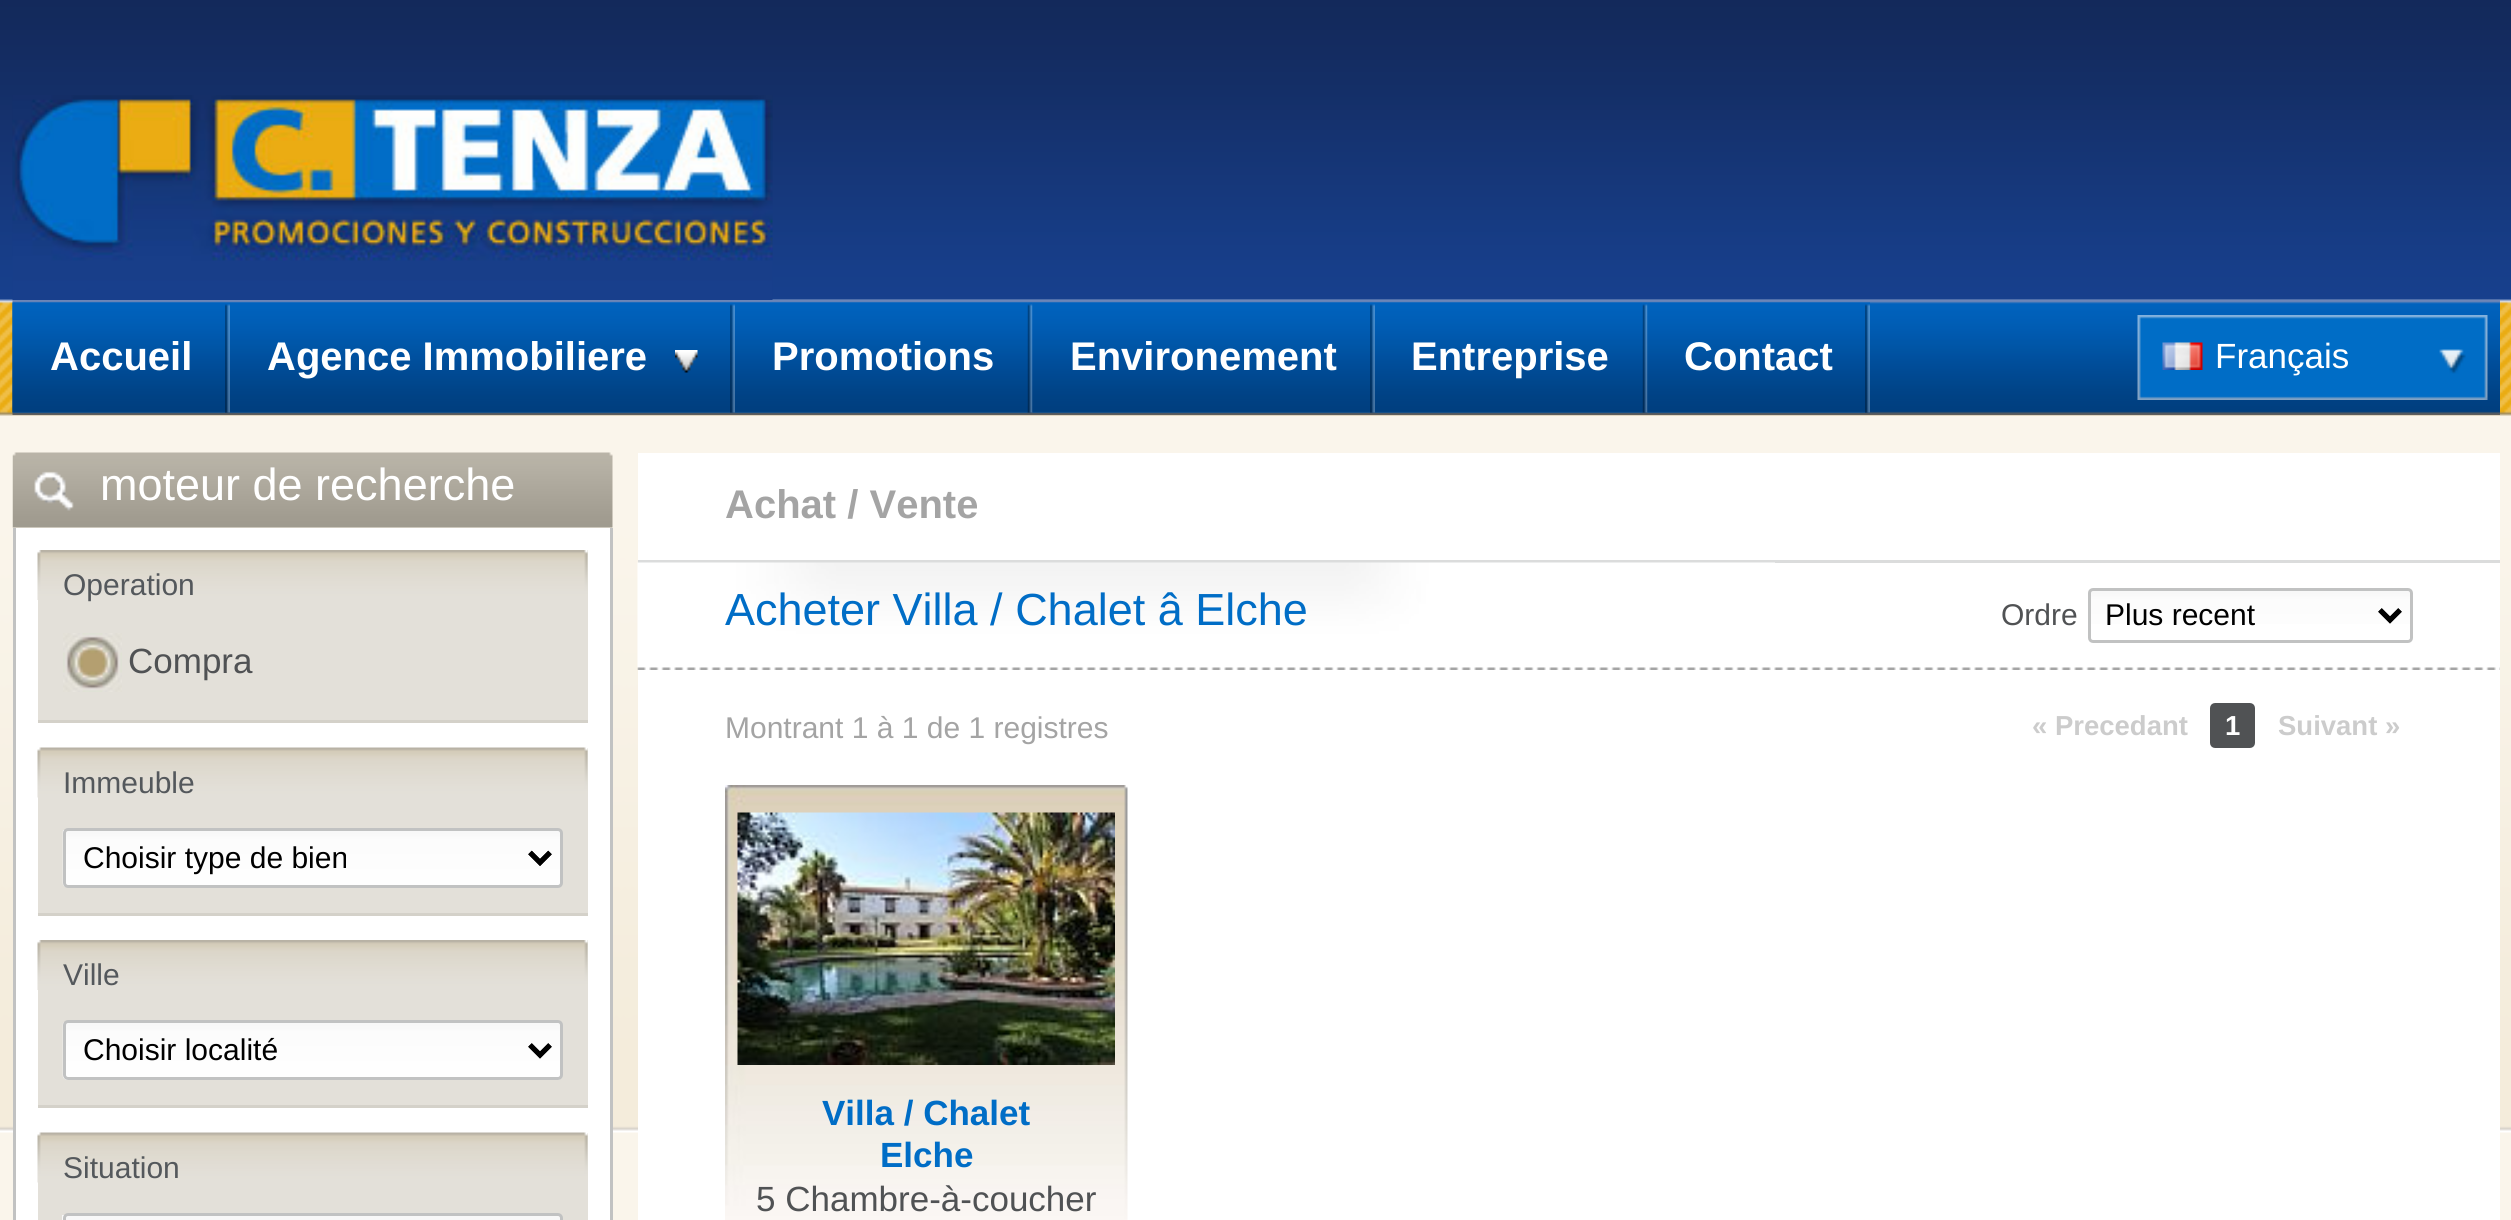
#include <cairo.h>
#include <math.h>
#include <stddef.h>

typedef struct { double x, y, w, h; unsigned color; } box_t;

static void ink(cairo_t *ctx, unsigned color) {
    cairo_set_source_rgb(ctx, (color >> 16) / 255.0, (color >> 8 & 255) / 255.0, (color & 255) / 255.0);
}

static void round_path(cairo_t *ctx, double x, double y, double w, double h, double r) {
    cairo_new_sub_path(ctx);
    cairo_arc(ctx, x + w - r, y + h - r, r, 0, M_PI / 2);
    cairo_arc(ctx, x + r, y + h - r, r, M_PI / 2, M_PI);
    cairo_arc(ctx, x + r, y + r, r, M_PI, 1.5 * M_PI);
    cairo_arc(ctx, x + w - r, y + r, r, 1.5 * M_PI, 2 * M_PI);
    cairo_close_path(ctx);
}

static void paste(cairo_t *ctx, const char *path, double x, double y, double w, double h) {
    cairo_surface_t *image = cairo_image_surface_create_from_png(path);
    cairo_save(ctx);
    cairo_set_source_surface(ctx, image, x, y);
    cairo_rectangle(ctx, x, y, w, h);
    cairo_fill(ctx);
    cairo_restore(ctx);
    cairo_surface_destroy(image);
}

int main(void) {
    cairo_surface_t *surface = cairo_image_surface_create(CAIRO_FORMAT_RGB24, 2511, 1220);
    cairo_t *ctx = cairo_create(surface);
    cairo_font_options_t *options = cairo_font_options_create();
    cairo_font_options_set_hint_metrics(options, CAIRO_HINT_METRICS_OFF);
    cairo_font_options_set_hint_style(options, CAIRO_HINT_STYLE_NONE);
    cairo_set_font_options(ctx, options);
    cairo_set_miter_limit(ctx, 4);
    ink(ctx, 0xFAF5EB);
    cairo_paint(ctx);
    paste(ctx, "media/1.png", 0, 0, 2511, 1133);
    paste(ctx, "media/2.png", 12, 95, 761, 205);
    paste(ctx, "media/3.png", 12, 300, 2488, 115);
    paste(ctx, "media/4.png", 225, 302, 5, 111);
    paste(ctx, "media/5.png", 12, 302, 213, 111);
    cairo_select_font_face(ctx, "Liberation Sans", CAIRO_FONT_SLANT_NORMAL, CAIRO_FONT_WEIGHT_BOLD);
    cairo_set_font_size(ctx, 40);
    ink(ctx, 0xFFFFFF);
    cairo_move_to(ctx, 50, 370);
    cairo_show_text(ctx, "Accueil");
    paste(ctx, "media/6.png", 730, 302, 5, 111);
    paste(ctx, "media/7.png", 230, 302, 500, 111);
    paste(ctx, "media/8.png", 675, 350, 23, 23);
    cairo_move_to(ctx, 267, 370);
    cairo_show_text(ctx, "Agence Immobiliere");
    paste(ctx, "media/9.png", 1027, 302, 6, 111);
    paste(ctx, "media/10.png", 735, 302, 293, 111);
    cairo_move_to(ctx, 772, 370);
    cairo_show_text(ctx, "Promotions");
    paste(ctx, "media/4.png", 1370, 302, 5, 111);
    paste(ctx, "media/11.png", 1032, 302, 338, 111);
    cairo_move_to(ctx, 1070, 370);
    cairo_show_text(ctx, "Environement");
    paste(ctx, "media/9.png", 1642, 302, 6, 111);
    paste(ctx, "media/12.png", 1375, 302, 268, 111);
    cairo_move_to(ctx, 1411, 370);
    cairo_show_text(ctx, "Entreprise");
    paste(ctx, "media/4.png", 1865, 302, 5, 111);
    paste(ctx, "media/13.png", 1647, 302, 218, 111);
    cairo_move_to(ctx, 1684, 370);
    cairo_show_text(ctx, "Contact");
    paste(ctx, "media/14.png", 2137, 315, 351, 85);
    paste(ctx, "media/15.png", 2162, 342, 41, 28);
    cairo_select_font_face(ctx, "Liberation Sans", CAIRO_FONT_SLANT_NORMAL, CAIRO_FONT_WEIGHT_NORMAL);
    cairo_set_font_size(ctx, 35);
    cairo_move_to(ctx, 2215, 368);
    cairo_show_text(ctx, "Français");
    paste(ctx, "media/16.png", 12, 452, 601, 76);
    paste(ctx, "media/17.png", 34, 471, 40, 40);
    cairo_set_font_size(ctx, 45);
    cairo_move_to(ctx, 100, 500);
    cairo_show_text(ctx, "moteur de recherche");
    {
        static const box_t items[] = {
            {16, 528, 594, 692, 0xFFFFFF},
            {610, 528, 3, 692, 0xC1C2C2},
            {13, 528, 3, 692, 0xC1C2C2},
            {38, 550, 550, 170, 0xE3E0D9},
        };
        for (size_t i = 0; i < sizeof items / sizeof *items; i++) {
            ink(ctx, items[i].color);
            cairo_rectangle(ctx, items[i].x, items[i].y, items[i].w, items[i].h);
            cairo_fill(ctx);
        }
    }
    paste(ctx, "media/18.png", 37, 550, 551, 50);
    ink(ctx, 0xD4D1C9);
    cairo_rectangle(ctx, 38, 720, 550, 3);
    cairo_fill(ctx);
    cairo_set_font_size(ctx, 30);
    ink(ctx, 0x54585C);
    cairo_move_to(ctx, 63, 595);
    cairo_show_text(ctx, "Operation");
    paste(ctx, "media/19.png", 63, 633, 59, 59);
    cairo_set_font_size(ctx, 35);
    ink(ctx, 0x505254);
    cairo_move_to(ctx, 128, 673);
    cairo_show_text(ctx, "Compra");
    ink(ctx, 0xE3E0D9);
    cairo_rectangle(ctx, 38, 748, 550, 165);
    cairo_fill(ctx);
    paste(ctx, "media/20.png", 37, 747, 551, 51);
    ink(ctx, 0xD4D1C9);
    cairo_rectangle(ctx, 38, 913, 550, 3);
    cairo_fill(ctx);
    cairo_set_font_size(ctx, 30);
    ink(ctx, 0x54585C);
    cairo_move_to(ctx, 63, 793);
    cairo_show_text(ctx, "Immeuble");
    paste(ctx, "media/21.png", 62, 830, 498, 57);
    round_path(ctx, 64.5, 829.5, 497, 57, 3.5);
    ink(ctx, 0xC1C2C2);
    cairo_set_line_width(ctx, 3);
    cairo_stroke(ctx);
    cairo_new_path(ctx);
    cairo_move_to(ctx, 530, 852.5);
    cairo_line_to(ctx, 540, 862.5);
    cairo_line_to(ctx, 550, 852.5);
    ink(ctx, 0x000000);
    cairo_set_line_width(ctx, 5);
    cairo_stroke(ctx);
    cairo_move_to(ctx, 83, 868);
    cairo_show_text(ctx, "Choisir type de bien");
    ink(ctx, 0xE3E0D9);
    cairo_rectangle(ctx, 38, 940, 550, 165);
    cairo_fill(ctx);
    paste(ctx, "media/18.png", 37, 940, 551, 50);
    ink(ctx, 0xD4D1C9);
    cairo_rectangle(ctx, 38, 1105, 550, 3);
    cairo_fill(ctx);
    ink(ctx, 0x54585C);
    cairo_move_to(ctx, 63, 985);
    cairo_show_text(ctx, "Ville");
    paste(ctx, "media/22.png", 62, 1022, 500, 58);
    round_path(ctx, 64.5, 1021.5, 497, 57, 3.5);
    ink(ctx, 0xC1C2C2);
    cairo_set_line_width(ctx, 3);
    cairo_stroke(ctx);
    cairo_new_path(ctx);
    cairo_move_to(ctx, 530, 1045);
    cairo_line_to(ctx, 540, 1055);
    cairo_line_to(ctx, 550, 1045);
    ink(ctx, 0x000000);
    cairo_set_line_width(ctx, 5);
    cairo_stroke(ctx);
    cairo_move_to(ctx, 83, 1060);
    cairo_show_text(ctx, "Choisir localité");
    ink(ctx, 0xE3E0D9);
    cairo_rectangle(ctx, 38, 1133, 550, 87);
    cairo_fill(ctx);
    paste(ctx, "media/20.png", 37, 1132, 551, 51);
    ink(ctx, 0x54585C);
    cairo_move_to(ctx, 63, 1178);
    cairo_show_text(ctx, "Situation");
    ink(ctx, 0xF8F8F8);
    cairo_rectangle(ctx, 62, 1215, 500, 5);
    cairo_fill(ctx);
    round_path(ctx, 64.5, 1214.5, 497, 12, 3.5);
    ink(ctx, 0xC1C2C2);
    cairo_set_line_width(ctx, 3);
    cairo_stroke(ctx);
    ink(ctx, 0xFFFFFF);
    cairo_rectangle(ctx, 638, 453, 1862, 767);
    cairo_fill(ctx);
    ink(ctx, 0xDBDCDC);
    cairo_rectangle(ctx, 638, 560, 1862, 3);
    cairo_fill(ctx);
    cairo_select_font_face(ctx, "Liberation Sans", CAIRO_FONT_SLANT_NORMAL, CAIRO_FONT_WEIGHT_BOLD);
    cairo_set_font_size(ctx, 40);
    ink(ctx, 0xA4A4A4);
    cairo_move_to(ctx, 725, 518);
    cairo_show_text(ctx, "Achat / Vente");
    paste(ctx, "media/23.png", 637, 562, 1138, 106);
    cairo_select_font_face(ctx, "Liberation Sans", CAIRO_FONT_SLANT_NORMAL, CAIRO_FONT_WEIGHT_NORMAL);
    cairo_set_font_size(ctx, 45);
    ink(ctx, 0x006DC6);
    cairo_move_to(ctx, 725, 625);
    cairo_show_text(ctx, "Acheter Villa / Chalet â Elche");
    cairo_set_font_size(ctx, 30);
    ink(ctx, 0x505254);
    cairo_move_to(ctx, 2001, 625);
    cairo_show_text(ctx, "Ordre");
    paste(ctx, "media/24.png", 2088, 590, 322, 34);
    round_path(ctx, 2089.5, 589.5, 322, 52, 3.5);
    ink(ctx, 0xC1C2C2);
    cairo_stroke(ctx);
    cairo_new_path(ctx);
    cairo_move_to(ctx, 2380, 610);
    cairo_line_to(ctx, 2390, 620);
    cairo_line_to(ctx, 2400, 610);
    ink(ctx, 0x000000);
    cairo_set_line_width(ctx, 5);
    cairo_stroke(ctx);
    cairo_move_to(ctx, 2105, 625);
    cairo_show_text(ctx, "Plus recent");
    paste(ctx, "media/25.png", 637, 667, 1863, 3);
    ink(ctx, 0xA4A4A4);
    cairo_move_to(ctx, 725, 738);
    cairo_show_text(ctx, "Montrant 1 à 1 de 1 registres");
    cairo_select_font_face(ctx, "Liberation Sans", CAIRO_FONT_SLANT_NORMAL, CAIRO_FONT_WEIGHT_BOLD);
    cairo_set_font_size(ctx, 27.5);
    ink(ctx, 0xCCCCCC);
    cairo_move_to(ctx, 2032, 735);
    cairo_show_text(ctx, "« Precedant");
    ink(ctx, 0x505254);
    round_path(ctx, 2211.5, 704.5, 42, 42, 3.5);
    cairo_fill_preserve(ctx);
    cairo_set_line_width(ctx, 3);
    cairo_stroke(ctx);
    ink(ctx, 0xFFFFFF);
    cairo_move_to(ctx, 2225, 735);
    cairo_show_text(ctx, "1");
    ink(ctx, 0xCCCCCC);
    cairo_move_to(ctx, 2278, 735);
    cairo_show_text(ctx, "Suivant »");
    paste(ctx, "media/26.png", 725, 785, 403, 435);
    paste(ctx, "media/27.png", 737, 812, 378, 253);
    cairo_set_font_size(ctx, 35);
    ink(ctx, 0x006DC6);
    cairo_move_to(ctx, 822, 1125);
    cairo_show_text(ctx, "Villa / Chalet");
    cairo_move_to(ctx, 880, 1167);
    cairo_show_text(ctx, "Elche");
    cairo_select_font_face(ctx, "Liberation Sans", CAIRO_FONT_SLANT_NORMAL, CAIRO_FONT_WEIGHT_NORMAL);
    ink(ctx, 0x505254);
    cairo_move_to(ctx, 756, 1211);
    cairo_show_text(ctx, "5 Chambre-à-coucher");
    cairo_surface_write_to_png(surface, "image.png");
    cairo_font_options_destroy(options);
    cairo_destroy(ctx);
    cairo_surface_destroy(surface);
    return 0;
}
